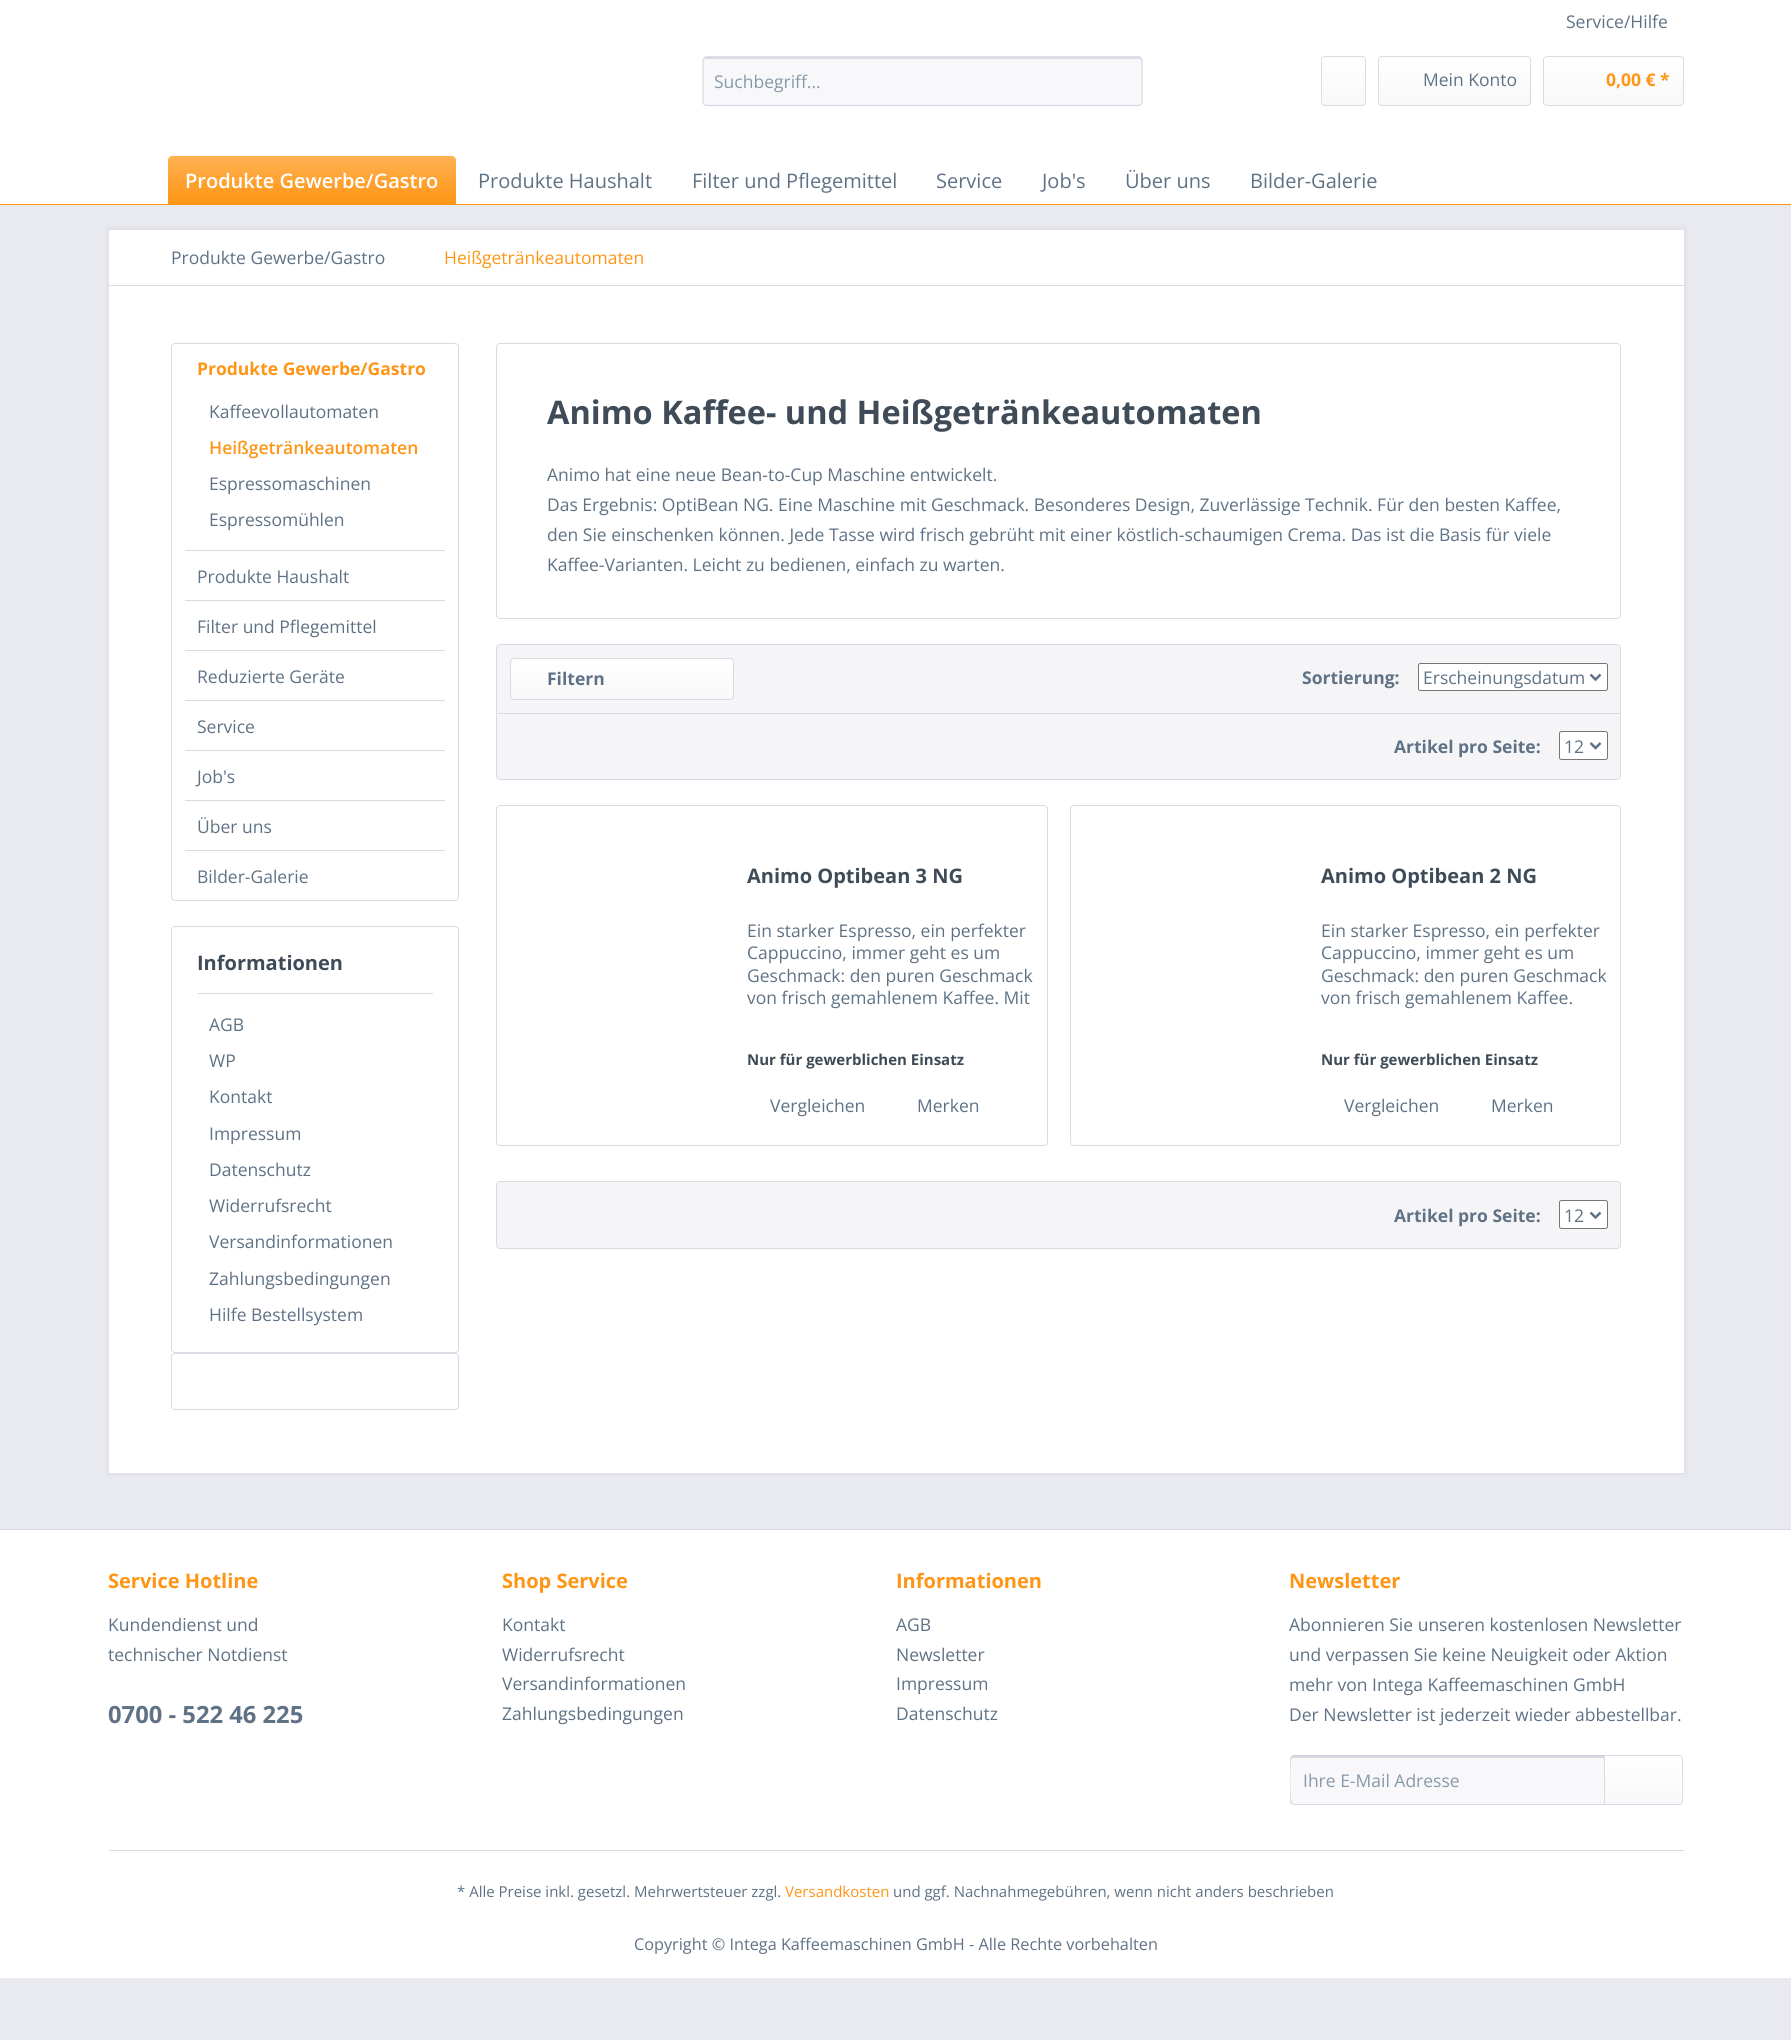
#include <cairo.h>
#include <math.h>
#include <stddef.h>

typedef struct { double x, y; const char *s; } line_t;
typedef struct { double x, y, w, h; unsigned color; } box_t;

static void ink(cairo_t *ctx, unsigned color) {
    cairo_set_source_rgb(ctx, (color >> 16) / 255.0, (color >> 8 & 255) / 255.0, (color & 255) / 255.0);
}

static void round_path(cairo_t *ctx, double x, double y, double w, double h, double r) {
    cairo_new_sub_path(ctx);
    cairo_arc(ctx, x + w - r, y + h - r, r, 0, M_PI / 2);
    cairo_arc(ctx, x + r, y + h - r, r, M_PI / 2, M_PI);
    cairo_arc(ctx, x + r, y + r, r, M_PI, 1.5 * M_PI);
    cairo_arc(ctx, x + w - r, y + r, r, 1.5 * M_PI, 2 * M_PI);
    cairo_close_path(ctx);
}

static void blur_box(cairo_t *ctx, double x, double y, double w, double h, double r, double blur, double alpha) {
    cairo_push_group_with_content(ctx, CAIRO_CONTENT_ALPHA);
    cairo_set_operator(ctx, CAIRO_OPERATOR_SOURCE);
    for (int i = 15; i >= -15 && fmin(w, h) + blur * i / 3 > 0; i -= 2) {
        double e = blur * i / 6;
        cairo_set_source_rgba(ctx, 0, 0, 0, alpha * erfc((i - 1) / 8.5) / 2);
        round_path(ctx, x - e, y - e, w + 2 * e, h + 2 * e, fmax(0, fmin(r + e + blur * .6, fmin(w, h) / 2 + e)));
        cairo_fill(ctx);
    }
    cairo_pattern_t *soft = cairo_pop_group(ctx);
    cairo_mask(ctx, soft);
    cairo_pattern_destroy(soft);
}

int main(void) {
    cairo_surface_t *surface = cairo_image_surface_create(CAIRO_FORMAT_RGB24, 1791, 2040);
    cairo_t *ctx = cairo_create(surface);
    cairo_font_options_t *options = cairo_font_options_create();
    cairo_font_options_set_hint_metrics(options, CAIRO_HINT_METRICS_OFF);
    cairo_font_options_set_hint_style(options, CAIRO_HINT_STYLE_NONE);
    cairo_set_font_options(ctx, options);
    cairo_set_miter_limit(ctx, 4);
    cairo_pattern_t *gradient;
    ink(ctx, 0xE9E9F0);
    cairo_paint(ctx);
    ink(ctx, 0xFFFFFF);
    cairo_rectangle(ctx, 0, 0, 1791, 204);
    cairo_fill(ctx);
    cairo_select_font_face(ctx, "Open Sans", CAIRO_FONT_SLANT_NORMAL, CAIRO_FONT_WEIGHT_NORMAL);
    cairo_set_font_size(ctx, 17.5);
    ink(ctx, 0x5F7285);
    cairo_move_to(ctx, 1566, 28);
    cairo_show_text(ctx, "Service/Hilfe");
    ink(ctx, 0xF8F8FA);
    round_path(ctx, 703, 56, 440, 50, 4);
    cairo_fill(ctx);
    ink(ctx, 0xDADAE5);
    cairo_new_path(ctx);
    cairo_move_to(ctx, 706, 59);
    cairo_line_to(ctx, 1139, 59);
    cairo_curve_to(ctx, 1140, 59, 1141, 60, 1141, 61);
    cairo_curve_to(ctx, 1141, 59, 1140, 58, 1138, 58);
    cairo_line_to(ctx, 706, 58);
    cairo_line_to(ctx, 705, 59);
    cairo_line_to(ctx, 704, 61);
    cairo_curve_to(ctx, 704, 60, 705, 59, 706, 59);
    cairo_close_path(ctx);
    cairo_fill(ctx);
    cairo_new_path(ctx);
    cairo_move_to(ctx, 704, 58);
    cairo_line_to(ctx, 706, 57);
    cairo_line_to(ctx, 1139, 57);
    cairo_line_to(ctx, 1141, 58);
    ink(ctx, 0xCBCBDB);
    cairo_set_line_width(ctx, 1.2);
    cairo_stroke(ctx);
    cairo_new_path(ctx);
    cairo_move_to(ctx, 1141, 58);
    cairo_line_to(ctx, 1142, 60);
    cairo_line_to(ctx, 1142, 102.5);
    cairo_line_to(ctx, 1141, 104.5);
    cairo_line_to(ctx, 1139, 105.5);
    cairo_line_to(ctx, 706, 105.5);
    cairo_line_to(ctx, 704, 104.5);
    cairo_line_to(ctx, 703, 102.5);
    cairo_line_to(ctx, 703, 60);
    cairo_line_to(ctx, 704, 58);
    ink(ctx, 0xDADAE5);
    cairo_stroke(ctx);
    ink(ctx, 0x8798A9);
    cairo_move_to(ctx, 714, 88);
    cairo_show_text(ctx, "Suchbegriff...");
    gradient = cairo_pattern_create_linear(1344, 58, 1344, 105);
    cairo_pattern_add_color_stop_rgba(gradient, 0, 1, 1, 1, 1);
    cairo_pattern_add_color_stop_rgba(gradient, 1, 0.973, 0.973, 0.98, 1);
    cairo_set_source(ctx, gradient);
    cairo_pattern_destroy(gradient);
    round_path(ctx, 1323, 58, 42, 47, 2.5);
    cairo_fill(ctx);
    round_path(ctx, 1321.5, 56.5, 44, 49, 3.5);
    ink(ctx, 0xDADAE5);
    cairo_set_line_width(ctx, 1);
    cairo_stroke(ctx);
    gradient = cairo_pattern_create_linear(1454, 57, 1454, 105);
    cairo_pattern_add_color_stop_rgba(gradient, 0, 1, 1, 1, 1);
    cairo_pattern_add_color_stop_rgba(gradient, 1, 0.973, 0.973, 0.98, 1);
    cairo_set_source(ctx, gradient);
    cairo_pattern_destroy(gradient);
    round_path(ctx, 1379, 58, 151, 47, 2.5);
    cairo_fill(ctx);
    round_path(ctx, 1378.5, 56.5, 152, 49, 3.5);
    ink(ctx, 0xDADAE5);
    cairo_stroke(ctx);
    ink(ctx, 0x5F7285);
    cairo_move_to(ctx, 1423, 86);
    cairo_show_text(ctx, "Mein Konto");
    gradient = cairo_pattern_create_linear(1613, 57, 1613, 105);
    cairo_pattern_add_color_stop_rgba(gradient, 0, 1, 1, 1, 1);
    cairo_pattern_add_color_stop_rgba(gradient, 1, 0.973, 0.973, 0.98, 1);
    cairo_set_source(ctx, gradient);
    cairo_pattern_destroy(gradient);
    round_path(ctx, 1544, 58, 139, 47, 2.5);
    cairo_fill(ctx);
    round_path(ctx, 1543.5, 56.5, 140, 49, 3.5);
    ink(ctx, 0xDADAE5);
    cairo_stroke(ctx);
    cairo_select_font_face(ctx, "Open Sans", CAIRO_FONT_SLANT_NORMAL, CAIRO_FONT_WEIGHT_BOLD);
    ink(ctx, 0xFF9515);
    cairo_move_to(ctx, 1606, 86);
    cairo_show_text(ctx, "0,00 € *");
    cairo_rectangle(ctx, 0, 204, 1791, 1);
    cairo_fill(ctx);
    gradient = cairo_pattern_create_linear(312, 156, 312, 204);
    cairo_pattern_add_color_stop_rgba(gradient, 0, 1, 0.694, 0.322, 1);
    cairo_pattern_add_color_stop_rgba(gradient, 1, 1, 0.584, 0.082, 1);
    cairo_set_source(ctx, gradient);
    cairo_pattern_destroy(gradient);
    cairo_new_path(ctx);
    cairo_move_to(ctx, 172, 156);
    cairo_line_to(ctx, 452, 156);
    cairo_curve_to(ctx, 454, 156, 456, 158, 456, 160);
    cairo_line_to(ctx, 456, 204);
    cairo_line_to(ctx, 168, 204);
    cairo_line_to(ctx, 168, 160);
    cairo_curve_to(ctx, 168, 158, 170, 156, 172, 156);
    cairo_close_path(ctx);
    cairo_fill(ctx);
    cairo_select_font_face(ctx, "Open Sans SemiBold", CAIRO_FONT_SLANT_NORMAL, CAIRO_FONT_WEIGHT_NORMAL);
    cairo_set_font_size(ctx, 20);
    ink(ctx, 0xFFFFFF);
    cairo_move_to(ctx, 185, 188);
    cairo_show_text(ctx, "Produkte Gewerbe/Gastro");
    cairo_select_font_face(ctx, "Open Sans", CAIRO_FONT_SLANT_NORMAL, CAIRO_FONT_WEIGHT_NORMAL);
    ink(ctx, 0x5F7285);
    {
        static const line_t items[] = {
            {478, 188, "Produkte Haushalt"},
            {692, 188, "Filter und Pflegemittel"},
            {936, 188, "Service"},
            {1042, 188, "Job's"},
            {1125, 188, "Über uns"},
            {1250, 188, "Bilder-Galerie"},
        };
        for (size_t i = 0; i < sizeof items / sizeof *items; i++) {
            cairo_move_to(ctx, items[i].x, items[i].y);
            cairo_show_text(ctx, items[i].s);
        }
    }
    ink(ctx, 0xDADAE5);
    blur_box(ctx, 108, 229, 1577, 1245, 0, 2.5, 1);
    ink(ctx, 0xFFFFFF);
    cairo_rectangle(ctx, 109, 230, 1575, 1243);
    cairo_fill(ctx);
    ink(ctx, 0xDADAE5);
    cairo_rectangle(ctx, 109, 285, 1575, 1);
    cairo_fill(ctx);
    cairo_set_font_size(ctx, 17.5);
    ink(ctx, 0x5F7285);
    cairo_move_to(ctx, 171, 264);
    cairo_show_text(ctx, "Produkte Gewerbe/Gastro");
    ink(ctx, 0xFF9515);
    cairo_move_to(ctx, 444, 264);
    cairo_show_text(ctx, "Heißgetränkeautomaten");
    round_path(ctx, 171.5, 343.5, 287, 557, 3.5);
    ink(ctx, 0xDADAE5);
    cairo_stroke(ctx);
    cairo_rectangle(ctx, 185, 550, 260, 1);
    cairo_fill(ctx);
    cairo_select_font_face(ctx, "Open Sans", CAIRO_FONT_SLANT_NORMAL, CAIRO_FONT_WEIGHT_BOLD);
    ink(ctx, 0xFF9515);
    cairo_move_to(ctx, 197, 375);
    cairo_show_text(ctx, "Produkte Gewerbe/Gastro");
    cairo_select_font_face(ctx, "Open Sans", CAIRO_FONT_SLANT_NORMAL, CAIRO_FONT_WEIGHT_NORMAL);
    ink(ctx, 0x5F7285);
    cairo_move_to(ctx, 209, 418);
    cairo_show_text(ctx, "Kaffeevollautomaten");
    cairo_select_font_face(ctx, "Open Sans SemiBold", CAIRO_FONT_SLANT_NORMAL, CAIRO_FONT_WEIGHT_NORMAL);
    ink(ctx, 0xFF9515);
    cairo_move_to(ctx, 209, 454);
    cairo_show_text(ctx, "Heißgetränkeautomaten");
    cairo_select_font_face(ctx, "Open Sans", CAIRO_FONT_SLANT_NORMAL, CAIRO_FONT_WEIGHT_NORMAL);
    ink(ctx, 0x5F7285);
    cairo_move_to(ctx, 209, 490);
    cairo_show_text(ctx, "Espressomaschinen");
    cairo_move_to(ctx, 209, 526);
    cairo_show_text(ctx, "Espressomühlen");
    ink(ctx, 0xDADAE5);
    cairo_rectangle(ctx, 185, 600, 260, 1);
    cairo_fill(ctx);
    ink(ctx, 0x5F7285);
    cairo_move_to(ctx, 197, 583);
    cairo_show_text(ctx, "Produkte Haushalt");
    ink(ctx, 0xDADAE5);
    cairo_rectangle(ctx, 185, 650, 260, 1);
    cairo_fill(ctx);
    ink(ctx, 0x5F7285);
    cairo_move_to(ctx, 197, 633);
    cairo_show_text(ctx, "Filter und Pflegemittel");
    ink(ctx, 0xDADAE5);
    cairo_rectangle(ctx, 185, 700, 260, 1);
    cairo_fill(ctx);
    ink(ctx, 0x5F7285);
    cairo_move_to(ctx, 197, 683);
    cairo_show_text(ctx, "Reduzierte Geräte");
    ink(ctx, 0xDADAE5);
    cairo_rectangle(ctx, 185, 750, 260, 1);
    cairo_fill(ctx);
    ink(ctx, 0x5F7285);
    cairo_move_to(ctx, 197, 733);
    cairo_show_text(ctx, "Service");
    ink(ctx, 0xDADAE5);
    cairo_rectangle(ctx, 185, 800, 260, 1);
    cairo_fill(ctx);
    ink(ctx, 0x5F7285);
    cairo_move_to(ctx, 197, 783);
    cairo_show_text(ctx, "Job's");
    ink(ctx, 0xDADAE5);
    cairo_rectangle(ctx, 185, 850, 260, 1);
    cairo_fill(ctx);
    ink(ctx, 0x5F7285);
    cairo_move_to(ctx, 197, 833);
    cairo_show_text(ctx, "Über uns");
    cairo_move_to(ctx, 197, 883);
    cairo_show_text(ctx, "Bilder-Galerie");
    round_path(ctx, 171.5, 926.5, 287, 426, 3.5);
    ink(ctx, 0xDADAE5);
    cairo_stroke(ctx);
    cairo_rectangle(ctx, 198, 993, 235, 1);
    cairo_fill(ctx);
    cairo_select_font_face(ctx, "Open Sans", CAIRO_FONT_SLANT_NORMAL, CAIRO_FONT_WEIGHT_BOLD);
    cairo_set_font_size(ctx, 20);
    ink(ctx, 0x3F4C58);
    cairo_move_to(ctx, 197, 970);
    cairo_show_text(ctx, "Informationen");
    cairo_select_font_face(ctx, "Open Sans", CAIRO_FONT_SLANT_NORMAL, CAIRO_FONT_WEIGHT_NORMAL);
    cairo_set_font_size(ctx, 17.5);
    ink(ctx, 0x5F7285);
    {
        static const line_t items[] = {
            {209, 1031, "AGB"},
            {209, 1067, "WP"},
            {209, 1103, "Kontakt"},
            {209, 1140, "Impressum"},
            {209, 1176, "Datenschutz"},
            {209, 1212, "Widerrufsrecht"},
            {209, 1248, "Versandinformationen"},
            {209, 1285, "Zahlungsbedingungen"},
            {209, 1321, "Hilfe Bestellsystem"},
        };
        for (size_t i = 0; i < sizeof items / sizeof *items; i++) {
            cairo_move_to(ctx, items[i].x, items[i].y);
            cairo_show_text(ctx, items[i].s);
        }
    }
    round_path(ctx, 171.5, 1353.5, 287, 56, 3.5);
    ink(ctx, 0xDADAE5);
    cairo_stroke(ctx);
    round_path(ctx, 496.5, 343.5, 1124, 275, 3.5);
    cairo_stroke(ctx);
    cairo_select_font_face(ctx, "Open Sans", CAIRO_FONT_SLANT_NORMAL, CAIRO_FONT_WEIGHT_BOLD);
    cairo_set_font_size(ctx, 32.5);
    ink(ctx, 0x3F4C58);
    cairo_move_to(ctx, 547, 424);
    cairo_show_text(ctx, "Animo Kaffee- und Heißgetränkeautomaten");
    cairo_select_font_face(ctx, "Open Sans", CAIRO_FONT_SLANT_NORMAL, CAIRO_FONT_WEIGHT_NORMAL);
    cairo_set_font_size(ctx, 17.5);
    ink(ctx, 0x5F7285);
    {
        static const line_t items[] = {
            {547, 481, "Animo hat eine neue Bean-to-Cup Maschine entwickelt."},
            {547, 511, "Das Ergebnis: OptiBean NG. Eine Maschine mit Geschmack. Besonderes Design, Zuverlässige Technik. Für den besten Kaffee,"},
            {547, 541, "den Sie einschenken können. Jede Tasse wird frisch gebrüht mit einer köstlich-schaumigen Crema. Das ist die Basis für viele"},
            {547, 571, "Kaffee-Varianten. Leicht zu bedienen, einfach zu warten."},
        };
        for (size_t i = 0; i < sizeof items / sizeof *items; i++) {
            cairo_move_to(ctx, items[i].x, items[i].y);
            cairo_show_text(ctx, items[i].s);
        }
    }
    ink(ctx, 0xF5F5F8);
    round_path(ctx, 496.5, 644.5, 1124, 135, 3.5);
    cairo_fill_preserve(ctx);
    ink(ctx, 0xDADAE5);
    cairo_stroke(ctx);
    gradient = cairo_pattern_create_linear(622, 659, 622, 699);
    cairo_pattern_add_color_stop_rgba(gradient, 0, 1, 1, 1, 1);
    cairo_pattern_add_color_stop_rgba(gradient, 1, 0.973, 0.973, 0.98, 1);
    cairo_set_source(ctx, gradient);
    cairo_pattern_destroy(gradient);
    round_path(ctx, 511, 659, 222, 40, 2.5);
    cairo_fill(ctx);
    round_path(ctx, 510.5, 658.5, 223, 41, 3.5);
    ink(ctx, 0xDADAE5);
    cairo_stroke(ctx);
    cairo_select_font_face(ctx, "Open Sans", CAIRO_FONT_SLANT_NORMAL, CAIRO_FONT_WEIGHT_BOLD);
    ink(ctx, 0x5F7285);
    cairo_move_to(ctx, 547, 685);
    cairo_show_text(ctx, "Filtern");
    cairo_move_to(ctx, 1302, 684);
    cairo_show_text(ctx, "Sortierung:");
    ink(ctx, 0xFFFFFF);
    round_path(ctx, 1418.5, 663.5, 189, 27, 2);
    cairo_fill_preserve(ctx);
    ink(ctx, 0x767676);
    cairo_stroke(ctx);
    cairo_new_path(ctx);
    cairo_move_to(ctx, 1590.5, 674.5);
    cairo_line_to(ctx, 1595.5, 679.5);
    cairo_line_to(ctx, 1600.5, 674.5);
    ink(ctx, 0x5F7285);
    cairo_set_line_width(ctx, 2.5);
    cairo_stroke(ctx);
    cairo_select_font_face(ctx, "Open Sans", CAIRO_FONT_SLANT_NORMAL, CAIRO_FONT_WEIGHT_NORMAL);
    cairo_move_to(ctx, 1423, 684);
    cairo_show_text(ctx, "Erscheinungsdatum");
    ink(ctx, 0xDADAE5);
    cairo_rectangle(ctx, 498, 713, 1122, 1);
    cairo_fill(ctx);
    cairo_select_font_face(ctx, "Open Sans", CAIRO_FONT_SLANT_NORMAL, CAIRO_FONT_WEIGHT_BOLD);
    ink(ctx, 0x5F7285);
    cairo_move_to(ctx, 1394, 753);
    cairo_show_text(ctx, "Artikel pro Seite:");
    ink(ctx, 0xFFFFFF);
    round_path(ctx, 1559.5, 731.5, 48, 28, 2);
    cairo_fill_preserve(ctx);
    ink(ctx, 0x767676);
    cairo_set_line_width(ctx, 1);
    cairo_stroke(ctx);
    cairo_new_path(ctx);
    cairo_move_to(ctx, 1590.5, 743);
    cairo_line_to(ctx, 1595.5, 748);
    cairo_line_to(ctx, 1600.5, 743);
    ink(ctx, 0x5F7285);
    cairo_set_line_width(ctx, 2.5);
    cairo_stroke(ctx);
    cairo_select_font_face(ctx, "Open Sans", CAIRO_FONT_SLANT_NORMAL, CAIRO_FONT_WEIGHT_NORMAL);
    cairo_move_to(ctx, 1564, 753);
    cairo_show_text(ctx, "12");
    round_path(ctx, 496.5, 805.5, 551, 340, 3.5);
    ink(ctx, 0xDADAE5);
    cairo_set_line_width(ctx, 1);
    cairo_stroke(ctx);
    cairo_select_font_face(ctx, "Open Sans", CAIRO_FONT_SLANT_NORMAL, CAIRO_FONT_WEIGHT_BOLD);
    cairo_set_font_size(ctx, 20);
    ink(ctx, 0x3F4C58);
    cairo_move_to(ctx, 747, 883);
    cairo_show_text(ctx, "Animo Optibean 3 NG");
    cairo_select_font_face(ctx, "Open Sans", CAIRO_FONT_SLANT_NORMAL, CAIRO_FONT_WEIGHT_NORMAL);
    cairo_set_font_size(ctx, 17.5);
    ink(ctx, 0x5F7285);
    {
        static const line_t items[] = {
            {747, 937, "Ein starker Espresso, ein perfekter"},
            {747, 959, "Cappuccino, immer geht es um"},
            {747, 982, "Geschmack: den puren Geschmack"},
            {747, 1004, "von frisch gemahlenem Kaffee. Mit"},
        };
        for (size_t i = 0; i < sizeof items / sizeof *items; i++) {
            cairo_move_to(ctx, items[i].x, items[i].y);
            cairo_show_text(ctx, items[i].s);
        }
    }
    cairo_select_font_face(ctx, "Open Sans", CAIRO_FONT_SLANT_NORMAL, CAIRO_FONT_WEIGHT_BOLD);
    cairo_set_font_size(ctx, 15);
    ink(ctx, 0x3F4C58);
    cairo_move_to(ctx, 747, 1065);
    cairo_show_text(ctx, "Nur für gewerblichen Einsatz");
    cairo_select_font_face(ctx, "Open Sans", CAIRO_FONT_SLANT_NORMAL, CAIRO_FONT_WEIGHT_NORMAL);
    cairo_set_font_size(ctx, 17.5);
    ink(ctx, 0x5F7285);
    cairo_move_to(ctx, 770, 1112);
    cairo_show_text(ctx, "Vergleichen");
    cairo_move_to(ctx, 917, 1112);
    cairo_show_text(ctx, "Merken");
    round_path(ctx, 1070.5, 805.5, 550, 340, 3.5);
    ink(ctx, 0xDADAE5);
    cairo_stroke(ctx);
    cairo_select_font_face(ctx, "Open Sans", CAIRO_FONT_SLANT_NORMAL, CAIRO_FONT_WEIGHT_BOLD);
    cairo_set_font_size(ctx, 20);
    ink(ctx, 0x3F4C58);
    cairo_move_to(ctx, 1321, 883);
    cairo_show_text(ctx, "Animo Optibean 2 NG");
    cairo_select_font_face(ctx, "Open Sans", CAIRO_FONT_SLANT_NORMAL, CAIRO_FONT_WEIGHT_NORMAL);
    cairo_set_font_size(ctx, 17.5);
    ink(ctx, 0x5F7285);
    {
        static const line_t items[] = {
            {1321, 937, "Ein starker Espresso, ein perfekter"},
            {1321, 959, "Cappuccino, immer geht es um"},
            {1321, 982, "Geschmack: den puren Geschmack"},
            {1321, 1004, "von frisch gemahlenem Kaffee."},
        };
        for (size_t i = 0; i < sizeof items / sizeof *items; i++) {
            cairo_move_to(ctx, items[i].x, items[i].y);
            cairo_show_text(ctx, items[i].s);
        }
    }
    cairo_select_font_face(ctx, "Open Sans", CAIRO_FONT_SLANT_NORMAL, CAIRO_FONT_WEIGHT_BOLD);
    cairo_set_font_size(ctx, 15);
    ink(ctx, 0x3F4C58);
    cairo_move_to(ctx, 1321, 1065);
    cairo_show_text(ctx, "Nur für gewerblichen Einsatz");
    cairo_select_font_face(ctx, "Open Sans", CAIRO_FONT_SLANT_NORMAL, CAIRO_FONT_WEIGHT_NORMAL);
    cairo_set_font_size(ctx, 17.5);
    ink(ctx, 0x5F7285);
    cairo_move_to(ctx, 1344, 1112);
    cairo_show_text(ctx, "Vergleichen");
    cairo_move_to(ctx, 1491, 1112);
    cairo_show_text(ctx, "Merken");
    ink(ctx, 0xF5F5F8);
    round_path(ctx, 496.5, 1181.5, 1124, 67, 3.5);
    cairo_fill_preserve(ctx);
    ink(ctx, 0xDADAE5);
    cairo_stroke(ctx);
    cairo_select_font_face(ctx, "Open Sans", CAIRO_FONT_SLANT_NORMAL, CAIRO_FONT_WEIGHT_BOLD);
    ink(ctx, 0x5F7285);
    cairo_move_to(ctx, 1394, 1222);
    cairo_show_text(ctx, "Artikel pro Seite:");
    ink(ctx, 0xFFFFFF);
    round_path(ctx, 1559.5, 1200.5, 48, 28, 2);
    cairo_fill_preserve(ctx);
    ink(ctx, 0x767676);
    cairo_stroke(ctx);
    cairo_new_path(ctx);
    cairo_move_to(ctx, 1590.5, 1212.5);
    cairo_line_to(ctx, 1595.5, 1217.5);
    cairo_line_to(ctx, 1600.5, 1212.5);
    ink(ctx, 0x5F7285);
    cairo_set_line_width(ctx, 2.5);
    cairo_stroke(ctx);
    cairo_select_font_face(ctx, "Open Sans", CAIRO_FONT_SLANT_NORMAL, CAIRO_FONT_WEIGHT_NORMAL);
    cairo_move_to(ctx, 1564, 1222);
    cairo_show_text(ctx, "12");
    {
        static const box_t items[] = {
            {0, 1530, 1791, 448, 0xFFFFFF},
            {0, 1529, 1791, 1, 0xDADAE5},
            {109, 1850, 1575, 1, 0xDADAE5},
        };
        for (size_t i = 0; i < sizeof items / sizeof *items; i++) {
            ink(ctx, items[i].color);
            cairo_rectangle(ctx, items[i].x, items[i].y, items[i].w, items[i].h);
            cairo_fill(ctx);
        }
    }
    cairo_select_font_face(ctx, "Open Sans", CAIRO_FONT_SLANT_NORMAL, CAIRO_FONT_WEIGHT_BOLD);
    cairo_set_font_size(ctx, 20);
    ink(ctx, 0xFF9515);
    cairo_move_to(ctx, 108, 1588);
    cairo_show_text(ctx, "Service Hotline");
    cairo_select_font_face(ctx, "Open Sans", CAIRO_FONT_SLANT_NORMAL, CAIRO_FONT_WEIGHT_NORMAL);
    cairo_set_font_size(ctx, 17.5);
    ink(ctx, 0x5F7285);
    cairo_move_to(ctx, 108, 1631);
    cairo_show_text(ctx, "Kundendienst und");
    cairo_move_to(ctx, 108, 1661);
    cairo_show_text(ctx, "technischer Notdienst");
    cairo_select_font_face(ctx, "Open Sans", CAIRO_FONT_SLANT_NORMAL, CAIRO_FONT_WEIGHT_BOLD);
    cairo_set_font_size(ctx, 23.75);
    cairo_move_to(ctx, 108, 1723);
    cairo_show_text(ctx, "0700 - 522 46 225");
    cairo_set_font_size(ctx, 20);
    ink(ctx, 0xFF9515);
    cairo_move_to(ctx, 502, 1588);
    cairo_show_text(ctx, "Shop Service");
    cairo_select_font_face(ctx, "Open Sans", CAIRO_FONT_SLANT_NORMAL, CAIRO_FONT_WEIGHT_NORMAL);
    cairo_set_font_size(ctx, 17.5);
    ink(ctx, 0x5F7285);
    {
        static const line_t items[] = {
            {502, 1631, "Kontakt"},
            {502, 1661, "Widerrufsrecht"},
            {502, 1690, "Versandinformationen"},
            {502, 1720, "Zahlungsbedingungen"},
        };
        for (size_t i = 0; i < sizeof items / sizeof *items; i++) {
            cairo_move_to(ctx, items[i].x, items[i].y);
            cairo_show_text(ctx, items[i].s);
        }
    }
    cairo_select_font_face(ctx, "Open Sans", CAIRO_FONT_SLANT_NORMAL, CAIRO_FONT_WEIGHT_BOLD);
    cairo_set_font_size(ctx, 20);
    ink(ctx, 0xFF9515);
    cairo_move_to(ctx, 896, 1588);
    cairo_show_text(ctx, "Informationen");
    cairo_select_font_face(ctx, "Open Sans", CAIRO_FONT_SLANT_NORMAL, CAIRO_FONT_WEIGHT_NORMAL);
    cairo_set_font_size(ctx, 17.5);
    ink(ctx, 0x5F7285);
    {
        static const line_t items[] = {
            {896, 1631, "AGB"},
            {896, 1661, "Newsletter"},
            {896, 1690, "Impressum"},
            {896, 1720, "Datenschutz"},
        };
        for (size_t i = 0; i < sizeof items / sizeof *items; i++) {
            cairo_move_to(ctx, items[i].x, items[i].y);
            cairo_show_text(ctx, items[i].s);
        }
    }
    cairo_select_font_face(ctx, "Open Sans", CAIRO_FONT_SLANT_NORMAL, CAIRO_FONT_WEIGHT_BOLD);
    cairo_set_font_size(ctx, 20);
    ink(ctx, 0xFF9515);
    cairo_move_to(ctx, 1289, 1588);
    cairo_show_text(ctx, "Newsletter");
    cairo_select_font_face(ctx, "Open Sans", CAIRO_FONT_SLANT_NORMAL, CAIRO_FONT_WEIGHT_NORMAL);
    cairo_set_font_size(ctx, 17.5);
    ink(ctx, 0x5F7285);
    {
        static const line_t items[] = {
            {1289, 1631, "Abonnieren Sie unseren kostenlosen Newsletter"},
            {1289, 1661, "und verpassen Sie keine Neuigkeit oder Aktion"},
            {1289, 1691, "mehr von Intega Kaffeemaschinen GmbH"},
            {1289, 1721, "Der Newsletter ist jederzeit wieder abbestellbar."},
        };
        for (size_t i = 0; i < sizeof items / sizeof *items; i++) {
            cairo_move_to(ctx, items[i].x, items[i].y);
            cairo_show_text(ctx, items[i].s);
        }
    }
    ink(ctx, 0xF8F8FA);
    cairo_new_path(ctx);
    cairo_move_to(ctx, 1293.5, 1756);
    cairo_line_to(ctx, 1604, 1756);
    cairo_line_to(ctx, 1604, 1804);
    cairo_line_to(ctx, 1293.5, 1804);
    cairo_curve_to(ctx, 1292, 1804, 1291, 1803, 1291, 1801.5);
    cairo_line_to(ctx, 1291, 1758.5);
    cairo_curve_to(ctx, 1291, 1757, 1292, 1756, 1293.5, 1756);
    cairo_close_path(ctx);
    cairo_fill(ctx);
    ink(ctx, 0xDADAE5);
    cairo_new_path(ctx);
    cairo_move_to(ctx, 1294, 1758);
    cairo_line_to(ctx, 1604, 1758);
    cairo_line_to(ctx, 1604, 1756);
    cairo_line_to(ctx, 1294, 1756);
    cairo_curve_to(ctx, 1292, 1756, 1291, 1757, 1291, 1758);
    cairo_line_to(ctx, 1291, 1760);
    cairo_curve_to(ctx, 1291, 1759, 1292, 1758, 1294, 1758);
    cairo_close_path(ctx);
    cairo_fill(ctx);
    ink(ctx, 0xCBCBDB);
    cairo_new_path(ctx);
    cairo_move_to(ctx, 1294, 1755);
    cairo_line_to(ctx, 1291, 1756);
    cairo_line_to(ctx, 1292, 1757);
    cairo_line_to(ctx, 1294, 1756);
    cairo_line_to(ctx, 1604, 1756);
    cairo_line_to(ctx, 1605, 1755);
    cairo_close_path(ctx);
    cairo_fill(ctx);
    ink(ctx, 0xDADAE5);
    cairo_new_path(ctx);
    cairo_move_to(ctx, 1605, 1805);
    cairo_line_to(ctx, 1604, 1804);
    cairo_line_to(ctx, 1294, 1804);
    cairo_line_to(ctx, 1292, 1803);
    cairo_line_to(ctx, 1291, 1804);
    cairo_line_to(ctx, 1294, 1805);
    cairo_close_path(ctx);
    cairo_fill(ctx);
    cairo_new_path(ctx);
    cairo_move_to(ctx, 1290, 1759);
    cairo_line_to(ctx, 1290, 1801);
    cairo_curve_to(ctx, 1290, 1802, 1290, 1803, 1291, 1804);
    cairo_line_to(ctx, 1292, 1803);
    cairo_curve_to(ctx, 1290, 1802, 1290, 1758, 1292, 1757);
    cairo_line_to(ctx, 1291, 1756);
    cairo_close_path(ctx);
    cairo_fill(ctx);
    ink(ctx, 0x8798A9);
    cairo_move_to(ctx, 1303, 1787);
    cairo_show_text(ctx, "Ihre E-Mail Adresse");
    gradient = cairo_pattern_create_linear(1643, 1756, 1643, 1804);
    cairo_pattern_add_color_stop_rgba(gradient, 0, 1, 1, 1, 1);
    cairo_pattern_add_color_stop_rgba(gradient, 1, 0.973, 0.973, 0.98, 1);
    cairo_set_source(ctx, gradient);
    cairo_pattern_destroy(gradient);
    cairo_new_path(ctx);
    cairo_move_to(ctx, 1605, 1756);
    cairo_line_to(ctx, 1678.5, 1756);
    cairo_curve_to(ctx, 1680, 1756, 1681, 1757, 1681, 1758.5);
    cairo_line_to(ctx, 1681, 1801.5);
    cairo_curve_to(ctx, 1681, 1803, 1680, 1804, 1678.5, 1804);
    cairo_line_to(ctx, 1605, 1804);
    cairo_close_path(ctx);
    cairo_fill(ctx);
    cairo_new_path(ctx);
    cairo_move_to(ctx, 1604.5, 1755.5);
    cairo_line_to(ctx, 1679, 1755.5);
    cairo_curve_to(ctx, 1681, 1755.5, 1682.5, 1757, 1682.5, 1759);
    cairo_line_to(ctx, 1682.5, 1801);
    cairo_curve_to(ctx, 1682.5, 1803, 1681, 1804.5, 1679, 1804.5);
    cairo_line_to(ctx, 1604.5, 1804.5);
    cairo_close_path(ctx);
    ink(ctx, 0xDADAE5);
    cairo_set_line_width(ctx, 1);
    cairo_stroke(ctx);
    cairo_set_font_size(ctx, 15);
    ink(ctx, 0x5F7285);
    cairo_move_to(ctx, 457, 1897);
    cairo_show_text(ctx, "* Alle Preise inkl. gesetzl. Mehrwertsteuer zzgl.");
    ink(ctx, 0xFF9515);
    cairo_move_to(ctx, 785, 1897);
    cairo_show_text(ctx, "Versandkosten");
    ink(ctx, 0x5F7285);
    cairo_move_to(ctx, 893, 1897);
    cairo_show_text(ctx, "und ggf. Nachnahmegebühren, wenn nicht anders beschrieben");
    cairo_set_font_size(ctx, 16.25);
    cairo_move_to(ctx, 634, 1950);
    cairo_show_text(ctx, "Copyright © Intega Kaffeemaschinen GmbH - Alle Rechte vorbehalten");
    cairo_surface_write_to_png(surface, "image.png");
    cairo_font_options_destroy(options);
    cairo_destroy(ctx);
    cairo_surface_destroy(surface);
    return 0;
}
